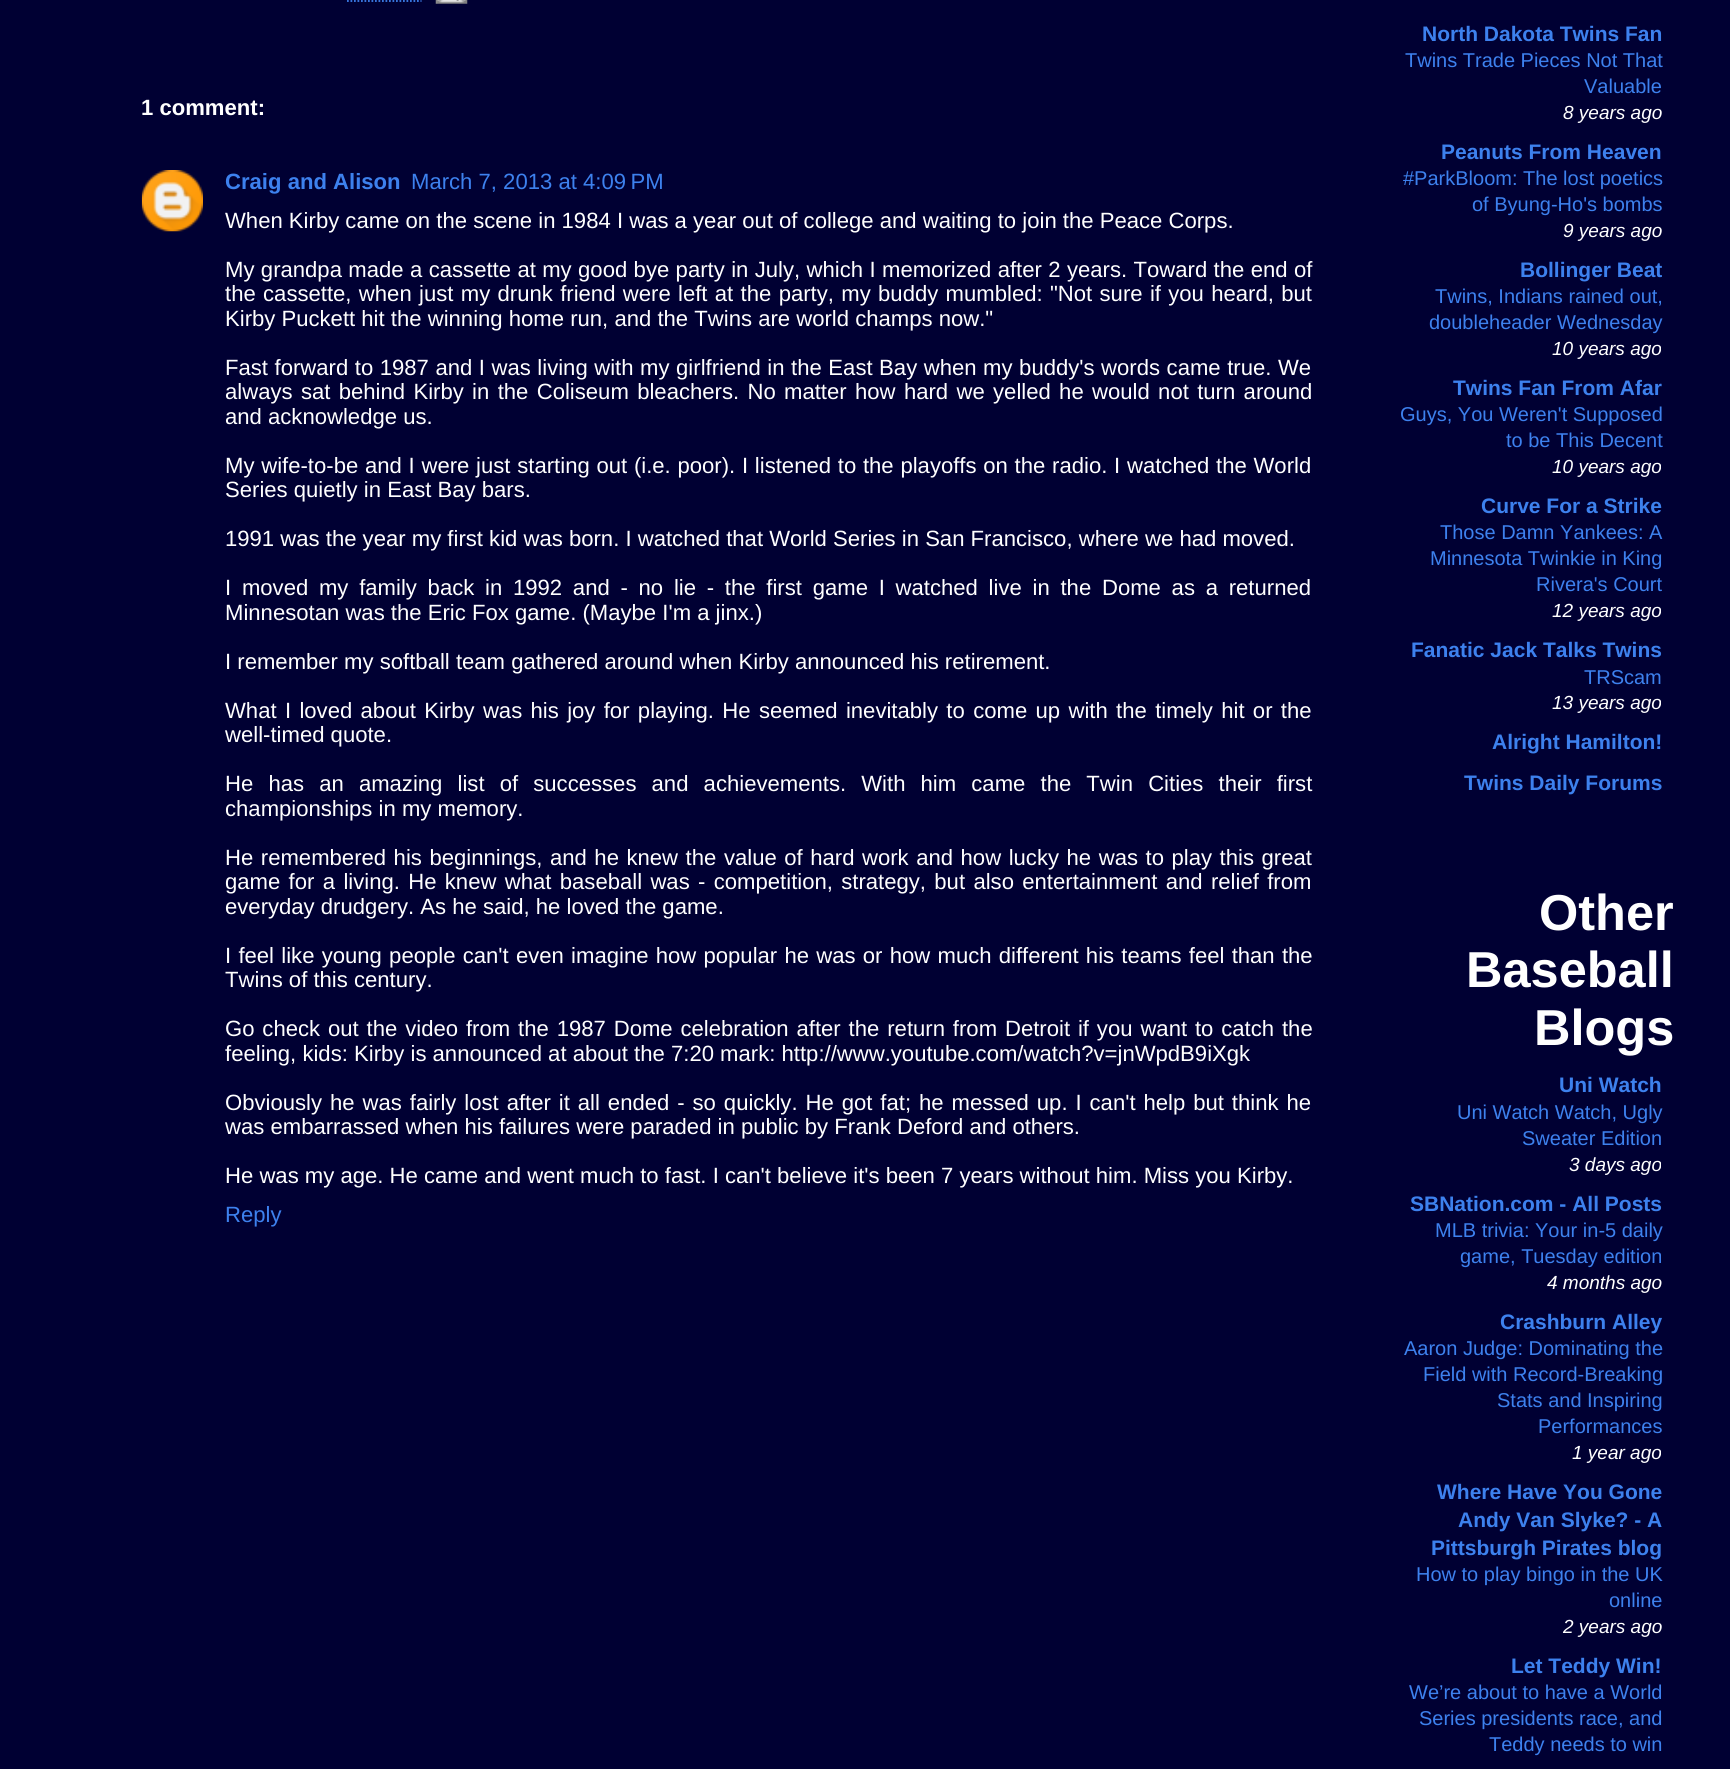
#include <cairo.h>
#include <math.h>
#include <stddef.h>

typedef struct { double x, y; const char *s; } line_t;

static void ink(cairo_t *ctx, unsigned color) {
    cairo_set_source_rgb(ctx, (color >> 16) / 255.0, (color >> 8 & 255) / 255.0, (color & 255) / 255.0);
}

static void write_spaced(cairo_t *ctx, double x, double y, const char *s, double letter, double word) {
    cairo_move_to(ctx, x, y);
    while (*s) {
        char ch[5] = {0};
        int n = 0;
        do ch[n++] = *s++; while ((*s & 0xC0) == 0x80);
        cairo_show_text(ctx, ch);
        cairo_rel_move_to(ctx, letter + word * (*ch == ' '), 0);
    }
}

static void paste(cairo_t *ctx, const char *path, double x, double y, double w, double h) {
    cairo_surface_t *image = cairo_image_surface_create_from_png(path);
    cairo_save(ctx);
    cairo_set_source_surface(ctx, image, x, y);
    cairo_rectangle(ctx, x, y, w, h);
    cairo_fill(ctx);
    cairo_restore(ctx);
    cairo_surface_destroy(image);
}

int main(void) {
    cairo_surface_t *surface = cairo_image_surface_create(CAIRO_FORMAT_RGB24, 1730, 1769);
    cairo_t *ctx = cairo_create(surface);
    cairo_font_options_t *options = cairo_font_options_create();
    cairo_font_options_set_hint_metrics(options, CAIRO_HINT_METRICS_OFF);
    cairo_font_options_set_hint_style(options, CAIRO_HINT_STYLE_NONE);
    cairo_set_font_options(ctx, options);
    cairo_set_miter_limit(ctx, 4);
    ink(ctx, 0x000033);
    cairo_paint(ctx);
    cairo_new_path(ctx);
    cairo_move_to(ctx, 347, 1);
    cairo_line_to(ctx, 421.5, 1);
    ink(ctx, 0x3D81EE);
    cairo_set_line_width(ctx, 1.8);
    cairo_set_dash(ctx, (double[]){1.75, 1.75}, 2, 0);
    cairo_stroke(ctx);
    paste(ctx, "media/1.png", 435, 0, 33, 4);
    cairo_select_font_face(ctx, "Liberation Sans", CAIRO_FONT_SLANT_NORMAL, CAIRO_FONT_WEIGHT_BOLD);
    cairo_set_font_size(ctx, 22.1);
    ink(ctx, 0xFFFFFF);
    cairo_move_to(ctx, 141, 115);
    cairo_show_text(ctx, "1 comment:");
    paste(ctx, "media/2.png", 141, 170, 62, 62);
    ink(ctx, 0x3D81EE);
    cairo_move_to(ctx, 225, 189);
    cairo_show_text(ctx, "Craig and Alison");
    cairo_select_font_face(ctx, "Liberation Sans", CAIRO_FONT_SLANT_NORMAL, CAIRO_FONT_WEIGHT_NORMAL);
    cairo_move_to(ctx, 411, 189);
    cairo_show_text(ctx, "March 7, 2013 at 4:09 PM");
    ink(ctx, 0xFFFFFF);
    cairo_move_to(ctx, 225, 228);
    cairo_show_text(ctx, "When Kirby came on the scene in 1984 I was a year out of college and waiting to join the Peace Corps.");
    write_spaced(ctx, 225, 277, "My grandpa made a cassette at my good bye party in July, which I memorized after 2 years. Toward the end of", 0, 0.25);
    write_spaced(ctx, 225, 301, "the cassette, when just my drunk friend were left at the party, my buddy mumbled: \"Not sure if you heard, but", 0, 1.2);
    cairo_move_to(ctx, 225, 326);
    cairo_show_text(ctx, "Kirby Puckett hit the winning home run, and the Twins are world champs now.\"");
    write_spaced(ctx, 225, 375, "Fast forward to 1987 and I was living with my girlfriend in the East Bay when my buddy's words came true. We", 0, 0.4);
    write_spaced(ctx, 225, 399, "always sat behind Kirby in the Coliseum bleachers. No matter how hard we yelled he would not turn around", 0, 2.2);
    cairo_move_to(ctx, 225, 424);
    cairo_show_text(ctx, "and acknowledge us.");
    write_spaced(ctx, 225, 473, "My wife-to-be and I were just starting out (i.e. poor). I listened to the playoffs on the radio. I watched the World", 0, 0.6);
    cairo_move_to(ctx, 225, 497);
    cairo_show_text(ctx, "Series quietly in East Bay bars.");
    cairo_move_to(ctx, 225, 546);
    cairo_show_text(ctx, "1991 was the year my first kid was born. I watched that World Series in San Francisco, where we had moved.");
    write_spaced(ctx, 225, 595, "I moved my family back in 1992 and - no lie - the first game I watched live in the Dome as a returned", 0, 4.6);
    cairo_move_to(ctx, 225, 620);
    cairo_show_text(ctx, "Minnesotan was the Eric Fox game. (Maybe I'm a jinx.)");
    cairo_move_to(ctx, 225, 669);
    cairo_show_text(ctx, "I remember my softball team gathered around when Kirby announced his retirement.");
    write_spaced(ctx, 225, 718, "What I loved about Kirby was his joy for playing. He seemed inevitably to come up with the timely hit or the", 0, 2.2);
    cairo_move_to(ctx, 225, 742);
    cairo_show_text(ctx, "well-timed quote.");
    write_spaced(ctx, 225, 791, "He has an amazing list of successes and achievements. With him came the Twin Cities their first", 0, 9);
    cairo_move_to(ctx, 225, 816);
    cairo_show_text(ctx, "championships in my memory.");
    write_spaced(ctx, 225, 865, "He remembered his beginnings, and he knew the value of hard work and how lucky he was to play this great", 0, 1.4);
    write_spaced(ctx, 225, 889, "game for a living. He knew what baseball was - competition, strategy, but also entertainment and relief from", 0, 2.2);
    cairo_move_to(ctx, 225, 914);
    cairo_show_text(ctx, "everyday drudgery. As he said, he loved the game.");
    write_spaced(ctx, 225, 963, "I feel like young people can't even imagine how popular he was or how much different his teams feel than the", 0, 1.1);
    cairo_move_to(ctx, 225, 987);
    cairo_show_text(ctx, "Twins of this century.");
    write_spaced(ctx, 225, 1036, "Go check out the video from the 1987 Dome celebration after the return from Detroit if you want to catch the", 0, 1.75);
    cairo_move_to(ctx, 225, 1061);
    cairo_show_text(ctx, "feeling, kids: Kirby is announced at about the 7:20 mark: http://www.youtube.com/watch?v=jnWpdB9iXgk");
    write_spaced(ctx, 225, 1110, "Obviously he was fairly lost after it all ended - so quickly. He got fat; he messed up. I can't help but think he", 0, 1.8);
    cairo_move_to(ctx, 225, 1134);
    cairo_show_text(ctx, "was embarrassed when his failures were paraded in public by Frank Deford and others.");
    cairo_move_to(ctx, 225, 1183);
    cairo_show_text(ctx, "He was my age. He came and went much to fast. I can't believe it's been 7 years without him. Miss you Kirby.");
    ink(ctx, 0x3D81EE);
    cairo_move_to(ctx, 225, 1222);
    cairo_show_text(ctx, "Reply");
    cairo_select_font_face(ctx, "Liberation Sans", CAIRO_FONT_SLANT_NORMAL, CAIRO_FONT_WEIGHT_BOLD);
    cairo_set_font_size(ctx, 21);
    cairo_move_to(ctx, 1422, 41);
    cairo_show_text(ctx, "North Dakota Twins Fan");
    cairo_select_font_face(ctx, "Liberation Sans", CAIRO_FONT_SLANT_NORMAL, CAIRO_FONT_WEIGHT_NORMAL);
    cairo_set_font_size(ctx, 20);
    cairo_move_to(ctx, 1405, 67);
    cairo_show_text(ctx, "Twins Trade Pieces Not That");
    cairo_move_to(ctx, 1584, 93);
    cairo_show_text(ctx, "Valuable");
    cairo_select_font_face(ctx, "Liberation Sans", CAIRO_FONT_SLANT_ITALIC, CAIRO_FONT_WEIGHT_NORMAL);
    cairo_set_font_size(ctx, 19);
    ink(ctx, 0xFFFFFF);
    cairo_move_to(ctx, 1563, 119);
    cairo_show_text(ctx, "8 years ago");
    cairo_select_font_face(ctx, "Liberation Sans", CAIRO_FONT_SLANT_NORMAL, CAIRO_FONT_WEIGHT_BOLD);
    cairo_set_font_size(ctx, 21);
    ink(ctx, 0x3D81EE);
    cairo_move_to(ctx, 1441, 159);
    cairo_show_text(ctx, "Peanuts From Heaven");
    cairo_select_font_face(ctx, "Liberation Sans", CAIRO_FONT_SLANT_NORMAL, CAIRO_FONT_WEIGHT_NORMAL);
    cairo_set_font_size(ctx, 20);
    cairo_move_to(ctx, 1403, 185);
    cairo_show_text(ctx, "#ParkBloom: The lost poetics");
    cairo_move_to(ctx, 1472, 211);
    cairo_show_text(ctx, "of Byung-Ho's bombs");
    cairo_select_font_face(ctx, "Liberation Sans", CAIRO_FONT_SLANT_ITALIC, CAIRO_FONT_WEIGHT_NORMAL);
    cairo_set_font_size(ctx, 19);
    ink(ctx, 0xFFFFFF);
    cairo_move_to(ctx, 1563, 237);
    cairo_show_text(ctx, "9 years ago");
    cairo_select_font_face(ctx, "Liberation Sans", CAIRO_FONT_SLANT_NORMAL, CAIRO_FONT_WEIGHT_BOLD);
    cairo_set_font_size(ctx, 21);
    ink(ctx, 0x3D81EE);
    cairo_move_to(ctx, 1520, 277);
    cairo_show_text(ctx, "Bollinger Beat");
    cairo_select_font_face(ctx, "Liberation Sans", CAIRO_FONT_SLANT_NORMAL, CAIRO_FONT_WEIGHT_NORMAL);
    cairo_set_font_size(ctx, 20);
    cairo_move_to(ctx, 1435, 303);
    cairo_show_text(ctx, "Twins, Indians rained out,");
    cairo_move_to(ctx, 1429, 329);
    cairo_show_text(ctx, "doubleheader Wednesday");
    cairo_select_font_face(ctx, "Liberation Sans", CAIRO_FONT_SLANT_ITALIC, CAIRO_FONT_WEIGHT_NORMAL);
    cairo_set_font_size(ctx, 19);
    ink(ctx, 0xFFFFFF);
    cairo_move_to(ctx, 1552, 355);
    cairo_show_text(ctx, "10 years ago");
    cairo_select_font_face(ctx, "Liberation Sans", CAIRO_FONT_SLANT_NORMAL, CAIRO_FONT_WEIGHT_BOLD);
    cairo_set_font_size(ctx, 21);
    ink(ctx, 0x3D81EE);
    cairo_move_to(ctx, 1453, 395);
    cairo_show_text(ctx, "Twins Fan From Afar");
    cairo_select_font_face(ctx, "Liberation Sans", CAIRO_FONT_SLANT_NORMAL, CAIRO_FONT_WEIGHT_NORMAL);
    cairo_set_font_size(ctx, 20);
    cairo_move_to(ctx, 1400, 421);
    cairo_show_text(ctx, "Guys, You Weren't Supposed");
    cairo_move_to(ctx, 1506, 447);
    cairo_show_text(ctx, "to be This Decent");
    cairo_select_font_face(ctx, "Liberation Sans", CAIRO_FONT_SLANT_ITALIC, CAIRO_FONT_WEIGHT_NORMAL);
    cairo_set_font_size(ctx, 19);
    ink(ctx, 0xFFFFFF);
    cairo_move_to(ctx, 1552, 473);
    cairo_show_text(ctx, "10 years ago");
    cairo_select_font_face(ctx, "Liberation Sans", CAIRO_FONT_SLANT_NORMAL, CAIRO_FONT_WEIGHT_BOLD);
    cairo_set_font_size(ctx, 21);
    ink(ctx, 0x3D81EE);
    cairo_move_to(ctx, 1481, 513);
    cairo_show_text(ctx, "Curve For a Strike");
    cairo_select_font_face(ctx, "Liberation Sans", CAIRO_FONT_SLANT_NORMAL, CAIRO_FONT_WEIGHT_NORMAL);
    cairo_set_font_size(ctx, 20);
    {
        static const line_t items[] = {
            {1440, 539, "Those Damn Yankees: A"},
            {1430, 565, "Minnesota Twinkie in King"},
            {1536, 591, "Rivera's Court"},
        };
        for (size_t i = 0; i < sizeof items / sizeof *items; i++) {
            cairo_move_to(ctx, items[i].x, items[i].y);
            cairo_show_text(ctx, items[i].s);
        }
    }
    cairo_select_font_face(ctx, "Liberation Sans", CAIRO_FONT_SLANT_ITALIC, CAIRO_FONT_WEIGHT_NORMAL);
    cairo_set_font_size(ctx, 19);
    ink(ctx, 0xFFFFFF);
    cairo_move_to(ctx, 1552, 617);
    cairo_show_text(ctx, "12 years ago");
    cairo_select_font_face(ctx, "Liberation Sans", CAIRO_FONT_SLANT_NORMAL, CAIRO_FONT_WEIGHT_BOLD);
    cairo_set_font_size(ctx, 21);
    ink(ctx, 0x3D81EE);
    cairo_move_to(ctx, 1411, 657);
    cairo_show_text(ctx, "Fanatic Jack Talks Twins");
    cairo_select_font_face(ctx, "Liberation Sans", CAIRO_FONT_SLANT_NORMAL, CAIRO_FONT_WEIGHT_NORMAL);
    cairo_set_font_size(ctx, 20);
    cairo_move_to(ctx, 1584, 684);
    cairo_show_text(ctx, "TRScam");
    cairo_select_font_face(ctx, "Liberation Sans", CAIRO_FONT_SLANT_ITALIC, CAIRO_FONT_WEIGHT_NORMAL);
    cairo_set_font_size(ctx, 19);
    ink(ctx, 0xFFFFFF);
    cairo_move_to(ctx, 1552, 709);
    cairo_show_text(ctx, "13 years ago");
    cairo_select_font_face(ctx, "Liberation Sans", CAIRO_FONT_SLANT_NORMAL, CAIRO_FONT_WEIGHT_BOLD);
    cairo_set_font_size(ctx, 21);
    ink(ctx, 0x3D81EE);
    cairo_move_to(ctx, 1492, 749);
    cairo_show_text(ctx, "Alright Hamilton!");
    cairo_move_to(ctx, 1464, 790);
    cairo_show_text(ctx, "Twins Daily Forums");
    cairo_set_font_size(ctx, 50.5);
    ink(ctx, 0xFFFFFF);
    {
        static const line_t items[] = {
            {1539, 930, "Other"},
            {1466, 987, "Baseball"},
            {1534, 1045, "Blogs"},
        };
        for (size_t i = 0; i < sizeof items / sizeof *items; i++) {
            cairo_move_to(ctx, items[i].x, items[i].y);
            cairo_show_text(ctx, items[i].s);
        }
    }
    cairo_set_font_size(ctx, 21);
    ink(ctx, 0x3D81EE);
    cairo_move_to(ctx, 1559, 1092);
    cairo_show_text(ctx, "Uni Watch");
    cairo_select_font_face(ctx, "Liberation Sans", CAIRO_FONT_SLANT_NORMAL, CAIRO_FONT_WEIGHT_NORMAL);
    cairo_set_font_size(ctx, 20);
    cairo_move_to(ctx, 1457, 1119);
    cairo_show_text(ctx, "Uni Watch Watch, Ugly");
    cairo_move_to(ctx, 1522, 1145);
    cairo_show_text(ctx, "Sweater Edition");
    cairo_select_font_face(ctx, "Liberation Sans", CAIRO_FONT_SLANT_ITALIC, CAIRO_FONT_WEIGHT_NORMAL);
    cairo_set_font_size(ctx, 19);
    ink(ctx, 0xFFFFFF);
    cairo_move_to(ctx, 1569, 1171);
    cairo_show_text(ctx, "3 days ago");
    cairo_select_font_face(ctx, "Liberation Sans", CAIRO_FONT_SLANT_NORMAL, CAIRO_FONT_WEIGHT_BOLD);
    cairo_set_font_size(ctx, 21);
    ink(ctx, 0x3D81EE);
    cairo_move_to(ctx, 1410, 1211);
    cairo_show_text(ctx, "SBNation.com - All Posts");
    cairo_select_font_face(ctx, "Liberation Sans", CAIRO_FONT_SLANT_NORMAL, CAIRO_FONT_WEIGHT_NORMAL);
    cairo_set_font_size(ctx, 20);
    cairo_move_to(ctx, 1435, 1237);
    cairo_show_text(ctx, "MLB trivia: Your in-5 daily");
    cairo_move_to(ctx, 1460, 1263);
    cairo_show_text(ctx, "game, Tuesday edition");
    cairo_select_font_face(ctx, "Liberation Sans", CAIRO_FONT_SLANT_ITALIC, CAIRO_FONT_WEIGHT_NORMAL);
    cairo_set_font_size(ctx, 19);
    ink(ctx, 0xFFFFFF);
    cairo_move_to(ctx, 1547, 1289);
    cairo_show_text(ctx, "4 months ago");
    cairo_select_font_face(ctx, "Liberation Sans", CAIRO_FONT_SLANT_NORMAL, CAIRO_FONT_WEIGHT_BOLD);
    cairo_set_font_size(ctx, 21);
    ink(ctx, 0x3D81EE);
    cairo_move_to(ctx, 1500, 1329);
    cairo_show_text(ctx, "Crashburn Alley");
    cairo_select_font_face(ctx, "Liberation Sans", CAIRO_FONT_SLANT_NORMAL, CAIRO_FONT_WEIGHT_NORMAL);
    cairo_set_font_size(ctx, 20);
    {
        static const line_t items[] = {
            {1404, 1355, "Aaron Judge: Dominating the"},
            {1423, 1381, "Field with Record-Breaking"},
            {1497, 1407, "Stats and Inspiring"},
            {1538, 1433, "Performances"},
        };
        for (size_t i = 0; i < sizeof items / sizeof *items; i++) {
            cairo_move_to(ctx, items[i].x, items[i].y);
            cairo_show_text(ctx, items[i].s);
        }
    }
    cairo_select_font_face(ctx, "Liberation Sans", CAIRO_FONT_SLANT_ITALIC, CAIRO_FONT_WEIGHT_NORMAL);
    cairo_set_font_size(ctx, 19);
    ink(ctx, 0xFFFFFF);
    cairo_move_to(ctx, 1572, 1459);
    cairo_show_text(ctx, "1 year ago");
    cairo_select_font_face(ctx, "Liberation Sans", CAIRO_FONT_SLANT_NORMAL, CAIRO_FONT_WEIGHT_BOLD);
    cairo_set_font_size(ctx, 21);
    ink(ctx, 0x3D81EE);
    {
        static const line_t items[] = {
            {1437, 1499, "Where Have You Gone"},
            {1458, 1527, "Andy Van Slyke? - A"},
            {1431, 1555, "Pittsburgh Pirates blog"},
        };
        for (size_t i = 0; i < sizeof items / sizeof *items; i++) {
            cairo_move_to(ctx, items[i].x, items[i].y);
            cairo_show_text(ctx, items[i].s);
        }
    }
    cairo_select_font_face(ctx, "Liberation Sans", CAIRO_FONT_SLANT_NORMAL, CAIRO_FONT_WEIGHT_NORMAL);
    cairo_set_font_size(ctx, 20);
    cairo_move_to(ctx, 1416, 1581);
    cairo_show_text(ctx, "How to play bingo in the UK");
    cairo_move_to(ctx, 1609, 1607);
    cairo_show_text(ctx, "online");
    cairo_select_font_face(ctx, "Liberation Sans", CAIRO_FONT_SLANT_ITALIC, CAIRO_FONT_WEIGHT_NORMAL);
    cairo_set_font_size(ctx, 19);
    ink(ctx, 0xFFFFFF);
    cairo_move_to(ctx, 1563, 1633);
    cairo_show_text(ctx, "2 years ago");
    cairo_select_font_face(ctx, "Liberation Sans", CAIRO_FONT_SLANT_NORMAL, CAIRO_FONT_WEIGHT_BOLD);
    cairo_set_font_size(ctx, 21);
    ink(ctx, 0x3D81EE);
    cairo_move_to(ctx, 1511, 1673);
    cairo_show_text(ctx, "Let Teddy Win!");
    cairo_select_font_face(ctx, "Liberation Sans", CAIRO_FONT_SLANT_NORMAL, CAIRO_FONT_WEIGHT_NORMAL);
    cairo_set_font_size(ctx, 20);
    {
        static const line_t items[] = {
            {1409, 1699, "We’re about to have a World"},
            {1419, 1725, "Series presidents race, and"},
            {1489, 1751, "Teddy needs to win"},
        };
        for (size_t i = 0; i < sizeof items / sizeof *items; i++) {
            cairo_move_to(ctx, items[i].x, items[i].y);
            cairo_show_text(ctx, items[i].s);
        }
    }
    cairo_surface_write_to_png(surface, "image.png");
    cairo_font_options_destroy(options);
    cairo_destroy(ctx);
    cairo_surface_destroy(surface);
    return 0;
}
